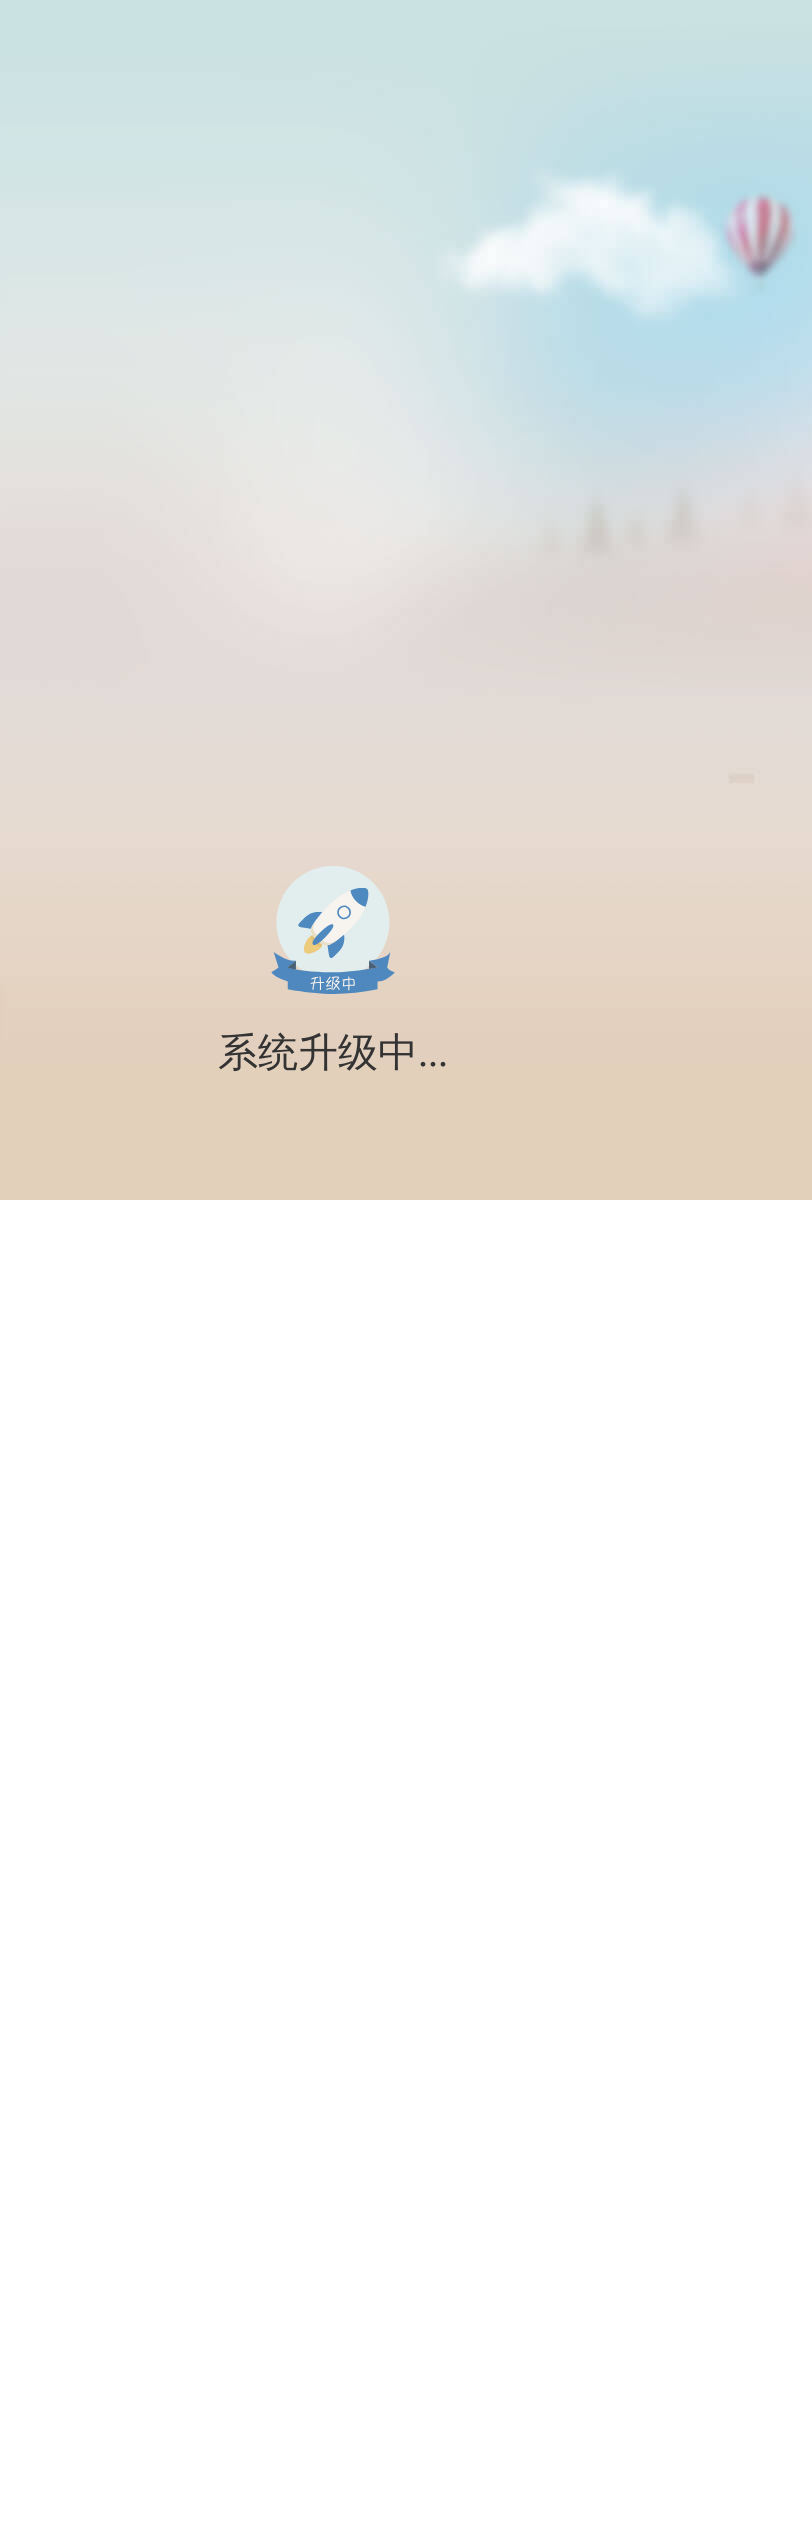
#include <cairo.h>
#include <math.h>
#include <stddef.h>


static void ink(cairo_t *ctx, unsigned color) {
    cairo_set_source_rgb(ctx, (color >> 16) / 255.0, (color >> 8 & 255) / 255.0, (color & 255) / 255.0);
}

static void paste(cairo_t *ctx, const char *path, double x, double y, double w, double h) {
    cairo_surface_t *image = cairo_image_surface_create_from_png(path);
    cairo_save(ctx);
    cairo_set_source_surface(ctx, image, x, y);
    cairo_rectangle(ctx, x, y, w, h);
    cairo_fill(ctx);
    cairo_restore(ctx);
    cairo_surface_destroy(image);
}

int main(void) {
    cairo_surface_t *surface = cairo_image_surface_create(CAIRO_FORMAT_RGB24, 812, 2539);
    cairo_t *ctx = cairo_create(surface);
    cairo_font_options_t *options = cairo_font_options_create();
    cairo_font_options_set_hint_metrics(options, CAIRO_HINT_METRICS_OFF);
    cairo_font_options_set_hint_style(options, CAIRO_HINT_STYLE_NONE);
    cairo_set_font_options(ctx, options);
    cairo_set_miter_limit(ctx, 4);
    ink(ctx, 0xFFFFFF);
    cairo_paint(ctx);
    paste(ctx, "media/1.png", 0, 0, 812, 1200);
    paste(ctx, "media/2.png", 271, 866, 124, 128);
    cairo_select_font_face(ctx, "WenQuanYi Zen Hei Medium", CAIRO_FONT_SLANT_NORMAL, CAIRO_FONT_WEIGHT_NORMAL);
    cairo_set_font_size(ctx, 40);
    ink(ctx, 0x333333);
    cairo_move_to(ctx, 218, 1066);
    cairo_show_text(ctx, "系统升级中");
    cairo_select_font_face(ctx, "Liberation Serif", CAIRO_FONT_SLANT_NORMAL, CAIRO_FONT_WEIGHT_NORMAL);
    cairo_move_to(ctx, 418, 1066);
    cairo_show_text(ctx, "...");
    cairo_surface_write_to_png(surface, "image.png");
    cairo_font_options_destroy(options);
    cairo_destroy(ctx);
    cairo_surface_destroy(surface);
    return 0;
}
